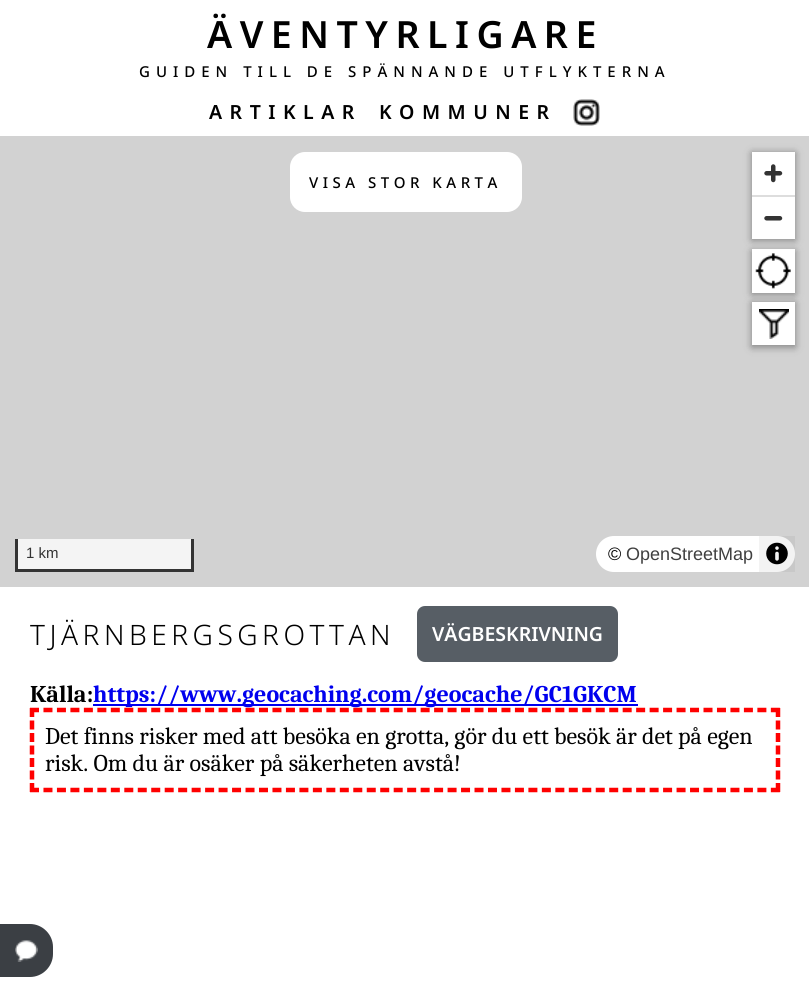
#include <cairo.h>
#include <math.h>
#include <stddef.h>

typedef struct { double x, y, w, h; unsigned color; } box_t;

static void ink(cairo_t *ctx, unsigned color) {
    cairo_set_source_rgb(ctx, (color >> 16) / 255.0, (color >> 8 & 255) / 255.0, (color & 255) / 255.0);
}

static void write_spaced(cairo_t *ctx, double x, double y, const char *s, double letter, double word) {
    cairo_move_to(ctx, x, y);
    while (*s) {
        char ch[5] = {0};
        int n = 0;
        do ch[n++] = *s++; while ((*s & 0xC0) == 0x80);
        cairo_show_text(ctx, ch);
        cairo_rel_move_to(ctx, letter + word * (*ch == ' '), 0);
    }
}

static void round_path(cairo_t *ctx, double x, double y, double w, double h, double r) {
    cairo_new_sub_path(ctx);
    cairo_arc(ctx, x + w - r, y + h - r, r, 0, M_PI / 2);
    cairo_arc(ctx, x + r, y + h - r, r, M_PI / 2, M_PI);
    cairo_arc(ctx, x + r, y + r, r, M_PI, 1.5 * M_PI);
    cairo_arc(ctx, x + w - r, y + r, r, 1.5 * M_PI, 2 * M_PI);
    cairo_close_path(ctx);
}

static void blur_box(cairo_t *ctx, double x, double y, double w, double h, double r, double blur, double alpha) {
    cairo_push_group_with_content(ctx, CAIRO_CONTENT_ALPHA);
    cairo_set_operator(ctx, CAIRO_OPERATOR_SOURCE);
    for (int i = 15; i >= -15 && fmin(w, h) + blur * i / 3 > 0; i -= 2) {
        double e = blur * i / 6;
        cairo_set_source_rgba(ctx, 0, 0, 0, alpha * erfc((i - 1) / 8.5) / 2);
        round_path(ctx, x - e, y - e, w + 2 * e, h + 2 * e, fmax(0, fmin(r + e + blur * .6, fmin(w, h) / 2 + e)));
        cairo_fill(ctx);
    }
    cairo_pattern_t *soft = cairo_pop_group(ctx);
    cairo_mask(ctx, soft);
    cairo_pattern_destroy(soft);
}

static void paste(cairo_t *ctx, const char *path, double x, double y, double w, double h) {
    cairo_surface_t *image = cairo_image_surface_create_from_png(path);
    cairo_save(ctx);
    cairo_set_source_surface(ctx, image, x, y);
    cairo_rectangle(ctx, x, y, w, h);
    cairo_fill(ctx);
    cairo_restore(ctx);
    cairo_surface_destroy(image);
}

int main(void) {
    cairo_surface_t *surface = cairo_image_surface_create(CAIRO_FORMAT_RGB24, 809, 1006);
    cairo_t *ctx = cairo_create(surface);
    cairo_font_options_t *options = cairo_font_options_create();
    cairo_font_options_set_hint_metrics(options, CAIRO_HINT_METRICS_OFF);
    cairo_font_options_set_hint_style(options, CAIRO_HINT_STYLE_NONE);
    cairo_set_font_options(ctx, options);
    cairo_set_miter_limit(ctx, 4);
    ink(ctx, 0xFFFFFF);
    cairo_paint(ctx);
    cairo_select_font_face(ctx, "Noto Sans SemiBold", CAIRO_FONT_SLANT_NORMAL, CAIRO_FONT_WEIGHT_NORMAL);
    cairo_set_font_size(ctx, 37.5);
    ink(ctx, 0x000000);
    write_spaced(ctx, 207, 48, "ÄVENTYRLIGARE", 7.5, 0);
    cairo_select_font_face(ctx, "Noto Sans Medium", CAIRO_FONT_SLANT_NORMAL, CAIRO_FONT_WEIGHT_NORMAL);
    cairo_set_font_size(ctx, 15);
    write_spaced(ctx, 139, 77, "GUIDEN TILL DE SPÄNNANDE UTFLYKTERNA", 6, 0);
    cairo_select_font_face(ctx, "Noto Sans SemiBold", CAIRO_FONT_SLANT_NORMAL, CAIRO_FONT_WEIGHT_NORMAL);
    cairo_set_font_size(ctx, 19.5);
    write_spaced(ctx, 209, 119, "ARTIKLAR", 7.5, 0);
    write_spaced(ctx, 379, 119, "KOMMUNER", 7.5, 0);
    paste(ctx, "media/1.png", 573, 99, 27, 27);
    ink(ctx, 0xD2D2D2);
    cairo_rectangle(ctx, 0, 136, 809, 451);
    cairo_fill(ctx);
    ink(ctx, 0xFFFFFF);
    round_path(ctx, 290, 152, 232, 60, 15);
    cairo_fill(ctx);
    cairo_select_font_face(ctx, "Noto Sans Medium", CAIRO_FONT_SLANT_NORMAL, CAIRO_FONT_WEIGHT_NORMAL);
    cairo_set_font_size(ctx, 15);
    ink(ctx, 0x000000);
    write_spaced(ctx, 309, 188, "VISA STOR KARTA", 4.5, 0);
    ink(ctx, 0x000000);
    blur_box(ctx, 752, 153, 43, 87, 0, 4, 0.4);
    ink(ctx, 0xFFFFFF);
    cairo_rectangle(ctx, 752, 152, 43, 87);
    cairo_fill(ctx);
    ink(ctx, 0x000000);
    blur_box(ctx, 752, 251, 43, 43, 0, 4, 0.4);
    ink(ctx, 0xFFFFFF);
    cairo_rectangle(ctx, 752, 249, 43, 44);
    cairo_fill(ctx);
    paste(ctx, "media/2.png", 755, 253, 36, 36);
    ink(ctx, 0x000000);
    blur_box(ctx, 752, 303, 43, 44, 0, 4, 0.4);
    ink(ctx, 0xFFFFFF);
    cairo_rectangle(ctx, 752, 302, 43, 43);
    cairo_fill(ctx);
    paste(ctx, "media/3.png", 759, 309, 30, 30);
    paste(ctx, "media/4.png", 764, 164, 19, 19);
    ink(ctx, 0xDDDDDD);
    cairo_rectangle(ctx, 752, 195, 43, 2);
    cairo_fill(ctx);
    paste(ctx, "media/5.png", 764, 216, 19, 5);
    {
        static const box_t items[] = {
            {18, 539, 173, 30, 0xF4F4F4},
            {191, 539, 3, 33, 0x333333},
            {15, 569, 179, 3, 0x333333},
            {15, 539, 3, 33, 0x333333},
        };
        for (size_t i = 0; i < sizeof items / sizeof *items; i++) {
            ink(ctx, items[i].color);
            cairo_rectangle(ctx, items[i].x, items[i].y, items[i].w, items[i].h);
            cairo_fill(ctx);
        }
    }
    cairo_select_font_face(ctx, "Liberation Sans", CAIRO_FONT_SLANT_NORMAL, CAIRO_FONT_WEIGHT_NORMAL);
    cairo_move_to(ctx, 26, 558);
    cairo_show_text(ctx, "1 km");
    ink(ctx, 0xFFFFFF);
    round_path(ctx, 596, 536, 199, 36, 18);
    cairo_fill(ctx);
    cairo_set_font_size(ctx, 18);
    ink(ctx, 0x000000);
    cairo_move_to(ctx, 608, 560);
    cairo_show_text(ctx, "©");
    ink(ctx, 0x404040);
    cairo_move_to(ctx, 626, 560);
    cairo_show_text(ctx, "OpenStreetMap");
    cairo_set_source_rgba(ctx, 0, 0, 0, 0.05);
    cairo_rectangle(ctx, 759, 536, 36, 36);
    cairo_fill(ctx);
    paste(ctx, "media/6.png", 766, 542, 22, 23);
    cairo_select_font_face(ctx, "Noto Sans Light", CAIRO_FONT_SLANT_NORMAL, CAIRO_FONT_WEIGHT_NORMAL);
    cairo_set_font_size(ctx, 28.1);
    ink(ctx, 0x000000);
    write_spaced(ctx, 30, 645, "TJÄRNBERGSGROTTAN", 4.5, 0);
    ink(ctx, 0x575E65);
    round_path(ctx, 417, 606, 201, 56, 8);
    cairo_fill(ctx);
    cairo_select_font_face(ctx, "Noto Sans SemiBold", CAIRO_FONT_SLANT_NORMAL, CAIRO_FONT_WEIGHT_NORMAL);
    cairo_set_font_size(ctx, 19.5);
    ink(ctx, 0xFFFFFF);
    cairo_move_to(ctx, 432, 641);
    cairo_show_text(ctx, "VÄGBESKRIVNING");
    cairo_select_font_face(ctx, "Caladea", CAIRO_FONT_SLANT_NORMAL, CAIRO_FONT_WEIGHT_BOLD);
    cairo_set_font_size(ctx, 24);
    ink(ctx, 0x000000);
    cairo_move_to(ctx, 30, 702);
    cairo_show_text(ctx, "Källa:");
    ink(ctx, 0x0000EE);
    cairo_rectangle(ctx, 93, 704, 545, 2);
    cairo_fill(ctx);
    cairo_new_path(ctx);
    cairo_move_to(ctx, 30, 710);
    cairo_line_to(ctx, 780, 710);
    ink(ctx, 0xFF0000);
    cairo_set_line_width(ctx, 4.5);
    cairo_set_dash(ctx, (double[]){9, 4.47}, 2, 0);
    cairo_stroke(ctx);
    ink(ctx, 0x0000EE);
    cairo_move_to(ctx, 93, 702);
    cairo_show_text(ctx, "https://www.geocaching.com/geocache/GC1GKCM");
    cairo_new_path(ctx);
    cairo_move_to(ctx, 778, 708);
    cairo_line_to(ctx, 778, 792);
    ink(ctx, 0xFF0000);
    cairo_set_dash(ctx, (double[]){9, 3.5}, 2, 0);
    cairo_stroke(ctx);
    cairo_new_path(ctx);
    cairo_move_to(ctx, 30, 790);
    cairo_line_to(ctx, 780, 790);
    cairo_set_dash(ctx, (double[]){9, 4.47}, 2, 0);
    cairo_stroke(ctx);
    cairo_new_path(ctx);
    cairo_move_to(ctx, 32, 708);
    cairo_line_to(ctx, 32, 792);
    cairo_set_dash(ctx, (double[]){9, 3.5}, 2, 0);
    cairo_stroke(ctx);
    cairo_select_font_face(ctx, "Caladea", CAIRO_FONT_SLANT_NORMAL, CAIRO_FONT_WEIGHT_NORMAL);
    ink(ctx, 0x000000);
    cairo_move_to(ctx, 45, 744);
    cairo_show_text(ctx, "Det finns risker med att besöka en grotta, gör du ett besök är det på egen");
    cairo_move_to(ctx, 45, 771);
    cairo_show_text(ctx, "risk. Om du är osäker på säkerheten avstå!");
    ink(ctx, 0x3B3F44);
    cairo_new_path(ctx);
    cairo_move_to(ctx, 0, 924);
    cairo_line_to(ctx, 30, 924);
    cairo_curve_to(ctx, 42.5, 924, 53, 934.5, 53, 947);
    cairo_line_to(ctx, 53, 954);
    cairo_curve_to(ctx, 53, 966.5, 42.5, 977, 30, 977);
    cairo_line_to(ctx, 0, 977);
    cairo_close_path(ctx);
    cairo_fill(ctx);
    paste(ctx, "media/7.png", 15, 940, 23, 22);
    cairo_surface_write_to_png(surface, "image.png");
    cairo_font_options_destroy(options);
    cairo_destroy(ctx);
    cairo_surface_destroy(surface);
    return 0;
}
